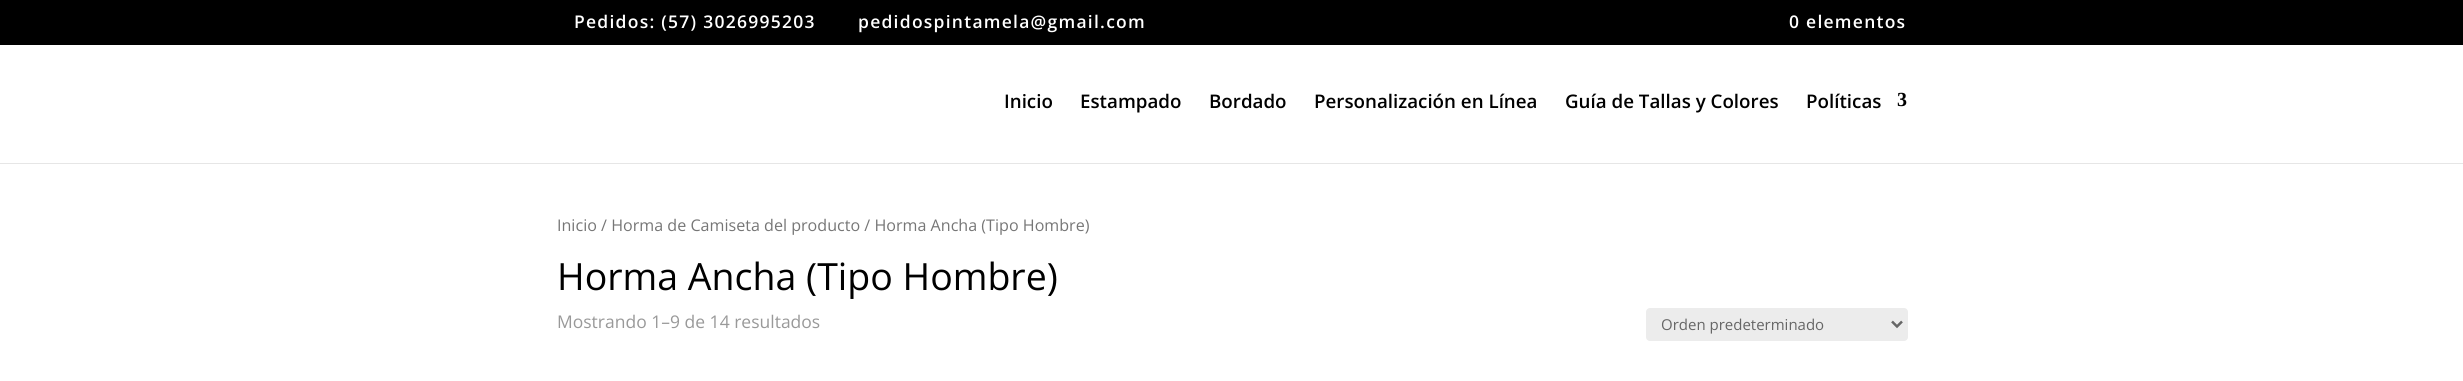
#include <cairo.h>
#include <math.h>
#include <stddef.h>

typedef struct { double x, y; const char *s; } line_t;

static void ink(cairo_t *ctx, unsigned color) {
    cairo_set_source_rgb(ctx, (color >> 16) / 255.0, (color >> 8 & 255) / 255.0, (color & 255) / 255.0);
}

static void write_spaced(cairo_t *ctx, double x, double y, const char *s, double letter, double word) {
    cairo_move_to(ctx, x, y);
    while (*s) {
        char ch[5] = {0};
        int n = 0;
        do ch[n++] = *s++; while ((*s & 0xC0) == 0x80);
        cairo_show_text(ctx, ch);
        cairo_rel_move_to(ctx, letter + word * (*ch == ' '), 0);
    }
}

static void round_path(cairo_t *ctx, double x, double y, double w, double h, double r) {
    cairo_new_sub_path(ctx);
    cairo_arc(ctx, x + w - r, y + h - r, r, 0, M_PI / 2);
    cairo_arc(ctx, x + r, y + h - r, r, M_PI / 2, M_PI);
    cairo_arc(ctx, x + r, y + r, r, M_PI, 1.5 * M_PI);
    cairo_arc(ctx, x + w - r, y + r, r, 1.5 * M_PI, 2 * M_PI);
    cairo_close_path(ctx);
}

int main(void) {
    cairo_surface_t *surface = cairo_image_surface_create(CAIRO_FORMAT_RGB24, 2463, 381);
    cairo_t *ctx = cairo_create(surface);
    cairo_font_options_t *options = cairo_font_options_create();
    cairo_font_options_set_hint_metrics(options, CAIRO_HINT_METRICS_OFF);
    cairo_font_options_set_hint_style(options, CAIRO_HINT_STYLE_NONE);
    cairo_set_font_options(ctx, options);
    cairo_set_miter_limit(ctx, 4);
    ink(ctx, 0xFFFFFF);
    cairo_paint(ctx);
    ink(ctx, 0x000000);
    cairo_rectangle(ctx, 0, 0, 2463, 45);
    cairo_fill(ctx);
    cairo_select_font_face(ctx, "Open Sans SemiBold", CAIRO_FONT_SLANT_NORMAL, CAIRO_FONT_WEIGHT_NORMAL);
    cairo_set_font_size(ctx, 17.5);
    ink(ctx, 0xFFFFFF);
    {
        static const line_t items[] = {
            {574, 28, "Pedidos: (57) 3026995203"},
            {858, 28, "pedidospintamela@gmail.com"},
            {1789, 28, "0 elementos"},
        };
        for (size_t i = 0; i < sizeof items / sizeof *items; i++) {
            write_spaced(ctx, items[i].x, items[i].y, items[i].s, 1.25, 0);
        }
    }
    ink(ctx, 0xE6E6E6);
    cairo_new_path(ctx);
    cairo_move_to(ctx, 0, 162);
    cairo_line_to(ctx, 0, 164);
    cairo_line_to(ctx, 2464, 164);
    cairo_line_to(ctx, 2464, 39);
    cairo_line_to(ctx, 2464, 162);
    cairo_close_path(ctx);
    cairo_fill(ctx);
    ink(ctx, 0xFFFFFF);
    cairo_rectangle(ctx, 0, 162, 2463, 1);
    cairo_fill(ctx);
    cairo_set_font_size(ctx, 18.75);
    ink(ctx, 0x000000);
    {
        static const line_t items[] = {
            {1004, 108, "Inicio"},
            {1080, 108, "Estampado"},
            {1209, 108, "Bordado"},
            {1314, 108, "Personalización en Línea"},
            {1565, 108, "Guía de Tallas y Colores"},
            {1806, 108, "Políticas"},
        };
        for (size_t i = 0; i < sizeof items / sizeof *items; i++) {
            cairo_move_to(ctx, items[i].x, items[i].y);
            cairo_show_text(ctx, items[i].s);
        }
    }
    cairo_select_font_face(ctx, "Liberation Serif", CAIRO_FONT_SLANT_NORMAL, CAIRO_FONT_WEIGHT_BOLD);
    cairo_set_font_size(ctx, 20);
    cairo_move_to(ctx, 1897, 106);
    cairo_show_text(ctx, "3");
    cairo_select_font_face(ctx, "Open Sans", CAIRO_FONT_SLANT_NORMAL, CAIRO_FONT_WEIGHT_NORMAL);
    cairo_set_font_size(ctx, 16.1);
    ink(ctx, 0x767676);
    cairo_move_to(ctx, 557, 231);
    cairo_show_text(ctx, "Inicio / Horma de Camiseta del producto / Horma Ancha (Tipo Hombre)");
    cairo_set_font_size(ctx, 37.5);
    ink(ctx, 0x000000);
    cairo_move_to(ctx, 557, 290);
    cairo_show_text(ctx, "Horma Ancha (Tipo Hombre)");
    cairo_set_font_size(ctx, 17.5);
    ink(ctx, 0x999999);
    cairo_move_to(ctx, 557, 328);
    cairo_show_text(ctx, "Mostrando 1–9 de 14 resultados");
    ink(ctx, 0xECECEC);
    round_path(ctx, 1646, 308, 262, 33, 4);
    cairo_fill(ctx);
    cairo_new_path(ctx);
    cairo_move_to(ctx, 1892, 321.5);
    cairo_line_to(ctx, 1897, 326.5);
    cairo_line_to(ctx, 1902, 321.5);
    ink(ctx, 0x666666);
    cairo_set_line_width(ctx, 2.5);
    cairo_stroke(ctx);
    cairo_set_font_size(ctx, 15);
    cairo_move_to(ctx, 1661, 330);
    cairo_show_text(ctx, "Orden predeterminado");
    cairo_surface_write_to_png(surface, "image.png");
    cairo_font_options_destroy(options);
    cairo_destroy(ctx);
    cairo_surface_destroy(surface);
    return 0;
}
